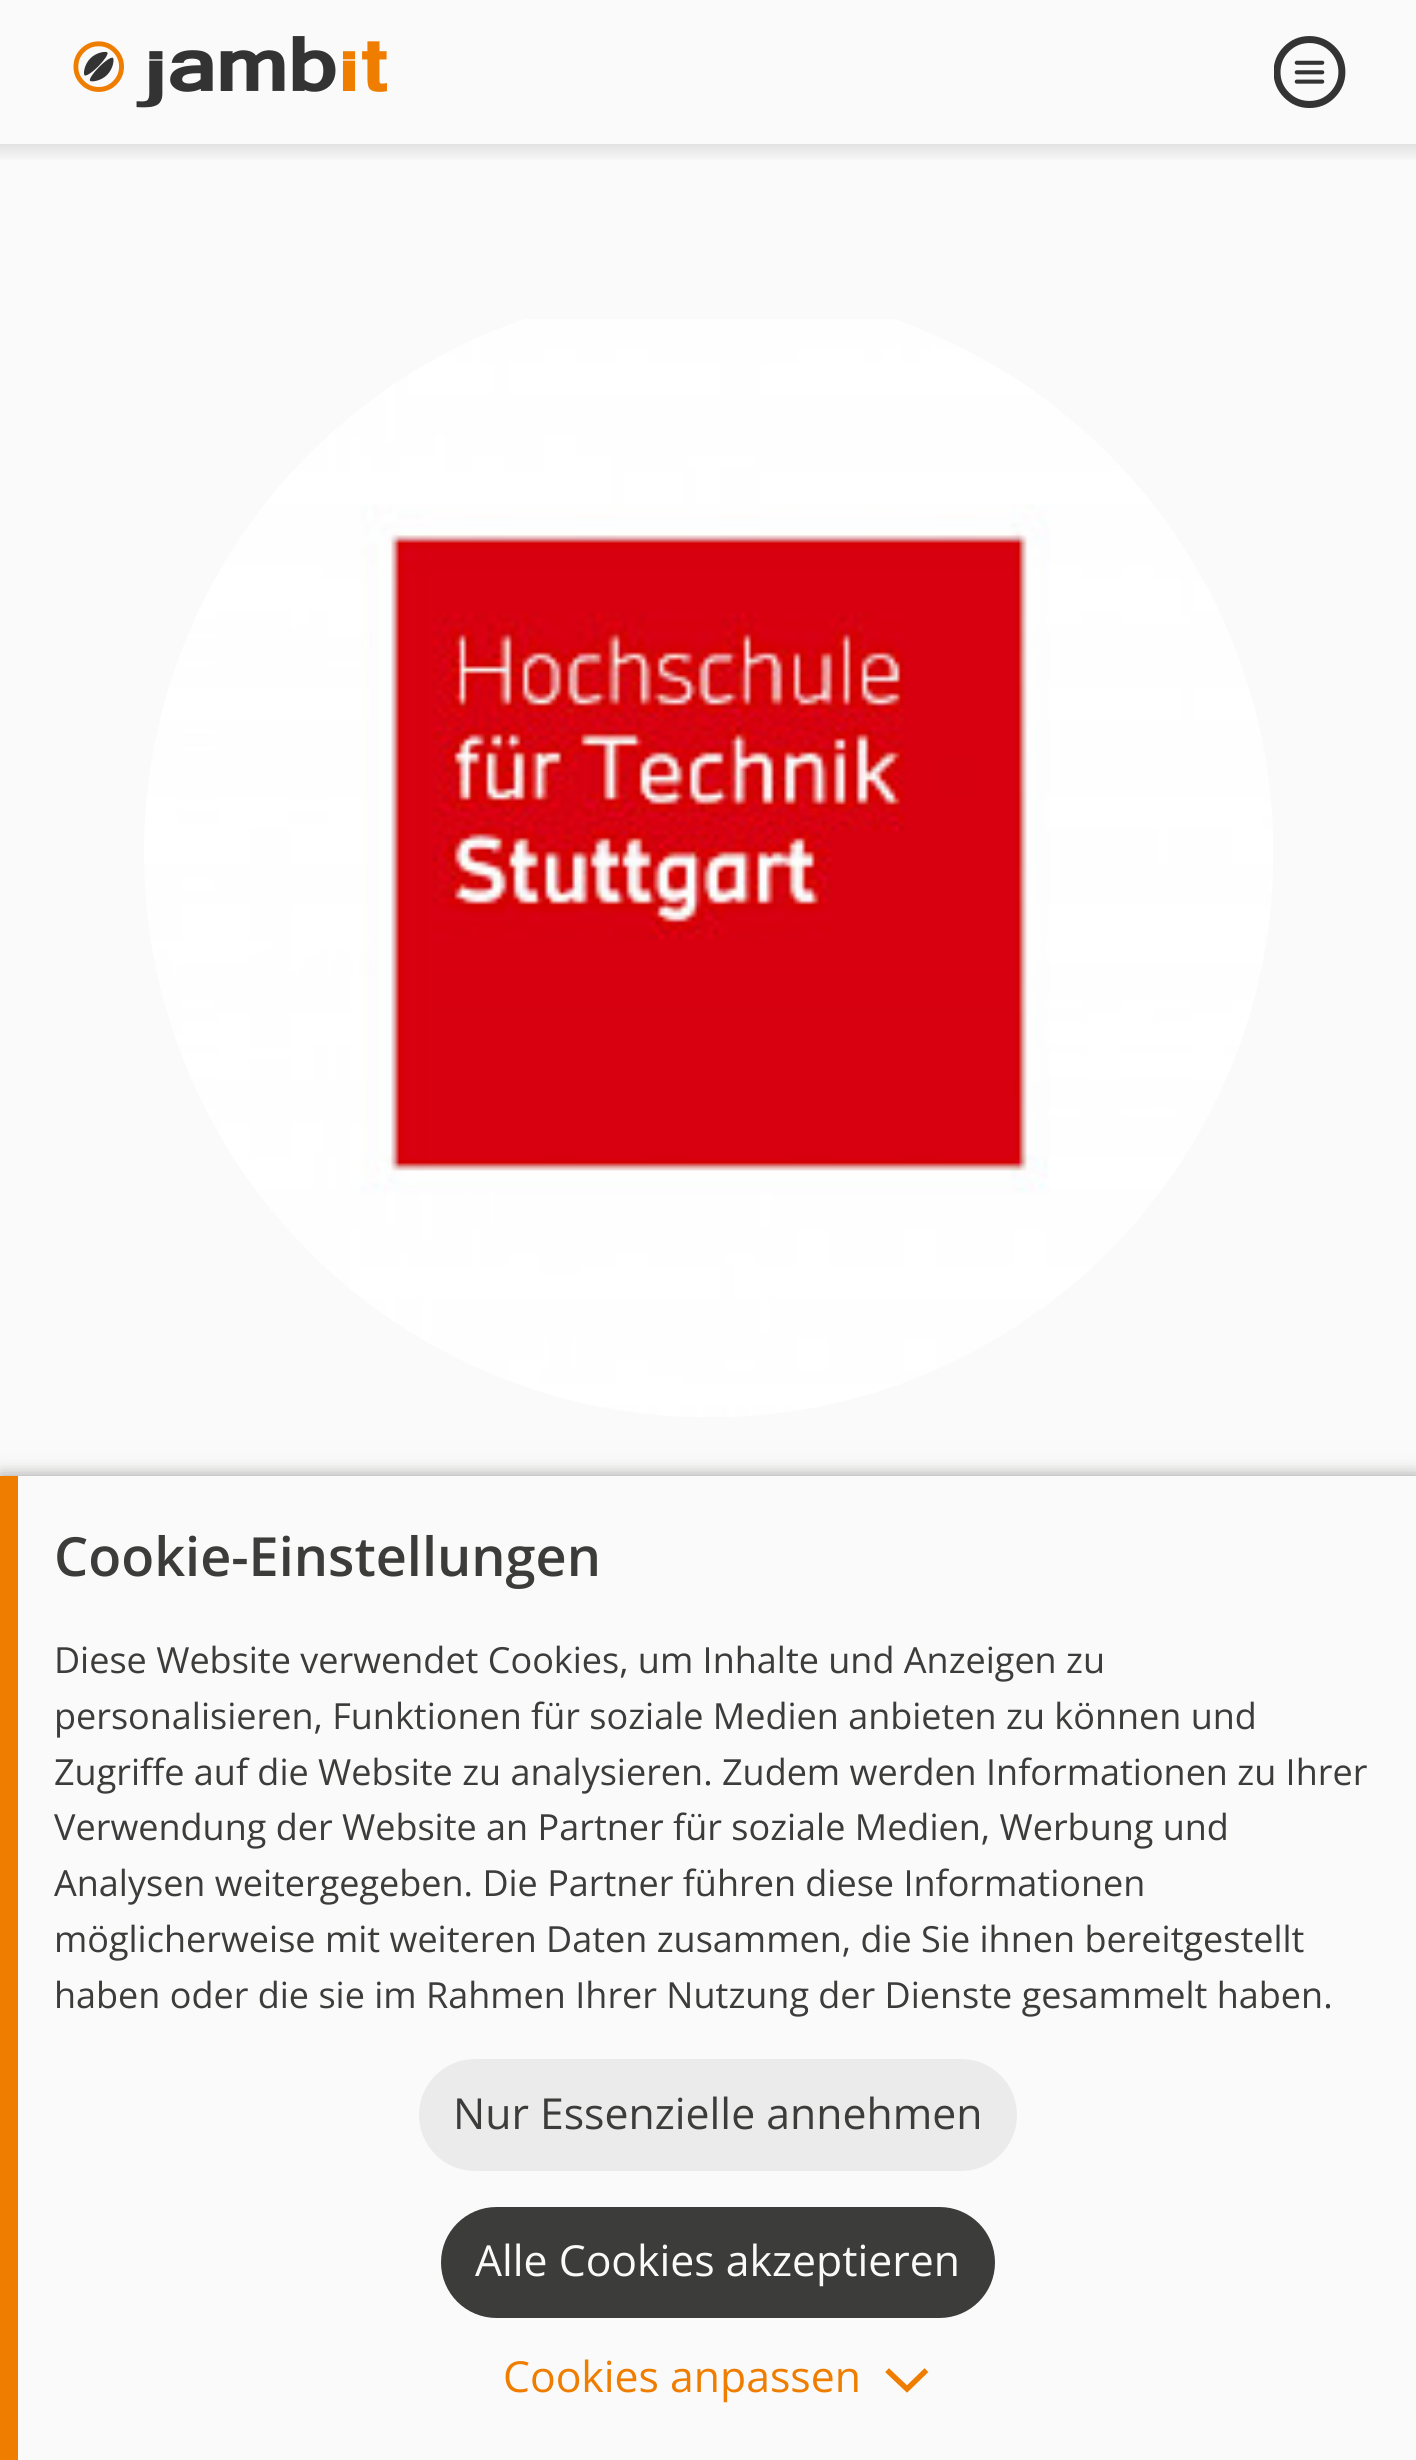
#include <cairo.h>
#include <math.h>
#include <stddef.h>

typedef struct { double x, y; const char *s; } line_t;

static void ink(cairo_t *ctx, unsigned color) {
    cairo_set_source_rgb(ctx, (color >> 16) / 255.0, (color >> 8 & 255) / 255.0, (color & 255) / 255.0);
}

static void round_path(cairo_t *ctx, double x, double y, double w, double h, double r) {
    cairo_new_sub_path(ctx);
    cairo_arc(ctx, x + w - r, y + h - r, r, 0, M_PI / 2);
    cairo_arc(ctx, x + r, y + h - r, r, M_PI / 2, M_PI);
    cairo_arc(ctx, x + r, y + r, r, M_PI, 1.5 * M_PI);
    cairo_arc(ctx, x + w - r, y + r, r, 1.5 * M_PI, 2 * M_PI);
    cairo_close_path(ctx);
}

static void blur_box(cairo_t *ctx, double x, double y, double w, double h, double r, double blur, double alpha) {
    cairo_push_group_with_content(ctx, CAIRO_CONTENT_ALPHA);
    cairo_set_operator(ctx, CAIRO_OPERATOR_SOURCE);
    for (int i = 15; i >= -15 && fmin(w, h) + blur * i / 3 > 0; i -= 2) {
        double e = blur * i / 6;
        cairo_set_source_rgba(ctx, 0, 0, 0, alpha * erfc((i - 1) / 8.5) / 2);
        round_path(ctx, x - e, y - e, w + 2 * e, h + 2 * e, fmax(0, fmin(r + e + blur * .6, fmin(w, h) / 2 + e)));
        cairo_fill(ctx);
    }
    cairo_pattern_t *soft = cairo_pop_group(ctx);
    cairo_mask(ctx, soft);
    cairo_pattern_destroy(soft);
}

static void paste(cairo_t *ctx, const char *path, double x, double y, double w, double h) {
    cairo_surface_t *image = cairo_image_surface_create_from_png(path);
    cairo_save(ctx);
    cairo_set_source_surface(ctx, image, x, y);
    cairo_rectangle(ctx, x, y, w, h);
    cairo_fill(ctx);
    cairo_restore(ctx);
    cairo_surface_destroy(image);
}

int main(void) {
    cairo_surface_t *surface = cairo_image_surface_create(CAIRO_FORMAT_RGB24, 1416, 2460);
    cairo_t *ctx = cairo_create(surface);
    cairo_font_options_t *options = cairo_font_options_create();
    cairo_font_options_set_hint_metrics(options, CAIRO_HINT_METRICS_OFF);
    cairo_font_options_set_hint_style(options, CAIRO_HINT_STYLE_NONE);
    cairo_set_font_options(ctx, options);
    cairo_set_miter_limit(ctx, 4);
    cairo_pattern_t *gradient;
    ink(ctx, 0xFAFAFA);
    cairo_paint(ctx);
    paste(ctx, "media/1.png", 73, 36, 314, 72);
    paste(ctx, "media/2.png", 1274, 36, 72, 72);
    gradient = cairo_pattern_create_linear(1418, 144, 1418, 162);
    cairo_pattern_add_color_stop_rgba(gradient, 0, 0.886, 0.886, 0.886, 1);
    cairo_pattern_add_color_stop_rgba(gradient, 1, 0.98, 0.98, 0.98, 1);
    cairo_set_source(ctx, gradient);
    cairo_pattern_destroy(gradient);
    cairo_rectangle(ctx, 0, 144, 1416, 16);
    cairo_fill(ctx);
    paste(ctx, "media/3.png", 144, 319, 1129, 1098);
    ink(ctx, 0x3C3C3B);
    blur_box(ctx, 0, 1476, 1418, 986, 0, 9, 0.5);
    ink(ctx, 0xFAFAFA);
    cairo_rectangle(ctx, 18, 1476, 1398, 984);
    cairo_fill(ctx);
    ink(ctx, 0xEF7D00);
    cairo_rectangle(ctx, 0, 1476, 18, 984);
    cairo_fill(ctx);
    cairo_select_font_face(ctx, "Open Sans SemiBold", CAIRO_FONT_SLANT_NORMAL, CAIRO_FONT_WEIGHT_NORMAL);
    cairo_set_font_size(ctx, 54);
    ink(ctx, 0x3C3C3B);
    cairo_move_to(ctx, 54, 1576);
    cairo_show_text(ctx, "Cookie-Einstellungen");
    cairo_select_font_face(ctx, "Open Sans", CAIRO_FONT_SLANT_NORMAL, CAIRO_FONT_WEIGHT_NORMAL);
    cairo_set_font_size(ctx, 36);
    {
        static const line_t items[] = {
            {54, 1673, "Diese Website verwendet Cookies, um Inhalte und Anzeigen zu"},
            {54, 1729, "personalisieren, Funktionen für soziale Medien anbieten zu können und"},
            {54, 1785, "Zugriffe auf die Website zu analysieren. Zudem werden Informationen zu Ihrer"},
            {54, 1840, "Verwendung der Website an Partner für soziale Medien, Werbung und"},
            {54, 1896, "Analysen weitergegeben. Die Partner führen diese Informationen"},
            {54, 1952, "möglicherweise mit weiteren Daten zusammen, die Sie ihnen bereitgestellt"},
            {54, 2008, "haben oder die sie im Rahmen Ihrer Nutzung der Dienste gesammelt haben."},
        };
        for (size_t i = 0; i < sizeof items / sizeof *items; i++) {
            cairo_move_to(ctx, items[i].x, items[i].y);
            cairo_show_text(ctx, items[i].s);
        }
    }
    ink(ctx, 0xEBEBEB);
    round_path(ctx, 419, 2059, 598, 112, 56);
    cairo_fill(ctx);
    cairo_set_font_size(ctx, 42.75);
    ink(ctx, 0x3C3C3B);
    cairo_move_to(ctx, 453, 2129);
    cairo_show_text(ctx, "Nur Essenzielle annehmen");
    round_path(ctx, 441, 2207, 554, 111, 55.5);
    cairo_fill(ctx);
    ink(ctx, 0xFAFAFA);
    cairo_move_to(ctx, 475, 2276);
    cairo_show_text(ctx, "Alle Cookies akzeptieren");
    ink(ctx, 0xEF7D00);
    cairo_move_to(ctx, 503, 2392);
    cairo_show_text(ctx, "Cookies anpassen");
    cairo_new_path(ctx);
    cairo_move_to(ctx, 889, 2372);
    cairo_line_to(ctx, 907, 2389);
    cairo_line_to(ctx, 924.5, 2372);
    cairo_set_line_width(ctx, 5.4);
    cairo_set_line_cap(ctx, CAIRO_LINE_CAP_SQUARE);
    cairo_stroke(ctx);
    cairo_surface_write_to_png(surface, "image.png");
    cairo_font_options_destroy(options);
    cairo_destroy(ctx);
    cairo_surface_destroy(surface);
    return 0;
}
